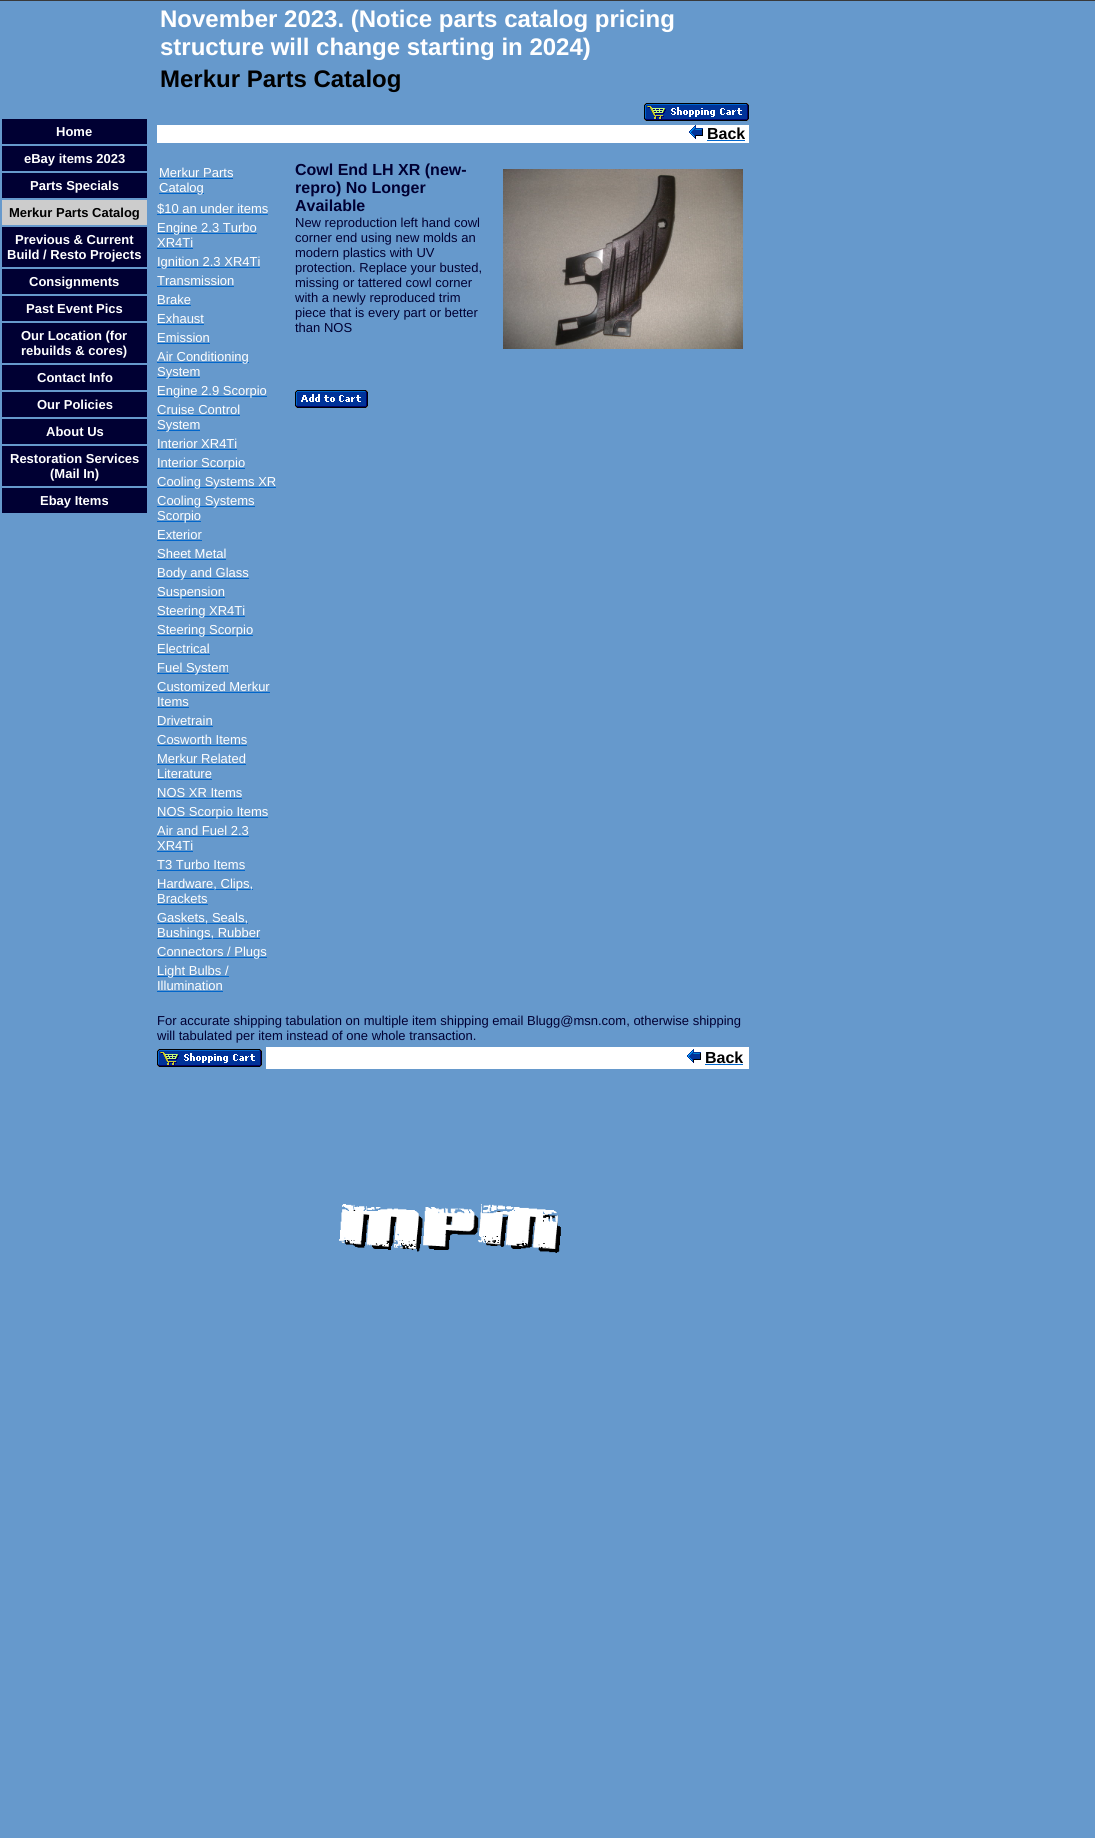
#include <cairo.h>
#include <math.h>
#include <stddef.h>

typedef struct { double x, y; const char *s; } line_t;

static void ink(cairo_t *ctx, unsigned color) {
    cairo_set_source_rgb(ctx, (color >> 16) / 255.0, (color >> 8 & 255) / 255.0, (color & 255) / 255.0);
}

static void paste(cairo_t *ctx, const char *path, double x, double y, double w, double h) {
    cairo_surface_t *image = cairo_image_surface_create_from_png(path);
    cairo_save(ctx);
    cairo_set_source_surface(ctx, image, x, y);
    cairo_rectangle(ctx, x, y, w, h);
    cairo_fill(ctx);
    cairo_restore(ctx);
    cairo_surface_destroy(image);
}

int main(void) {
    cairo_surface_t *surface = cairo_image_surface_create(CAIRO_FORMAT_RGB24, 1095, 1838);
    cairo_t *ctx = cairo_create(surface);
    cairo_font_options_t *options = cairo_font_options_create();
    cairo_font_options_set_hint_metrics(options, CAIRO_HINT_METRICS_OFF);
    cairo_font_options_set_hint_style(options, CAIRO_HINT_STYLE_NONE);
    cairo_set_font_options(ctx, options);
    cairo_set_miter_limit(ctx, 4);
    ink(ctx, 0x6699CC);
    cairo_paint(ctx);
    ink(ctx, 0x393939);
    cairo_rectangle(ctx, 0, 0, 1095, 1);
    cairo_fill(ctx);
    cairo_select_font_face(ctx, "Liberation Sans", CAIRO_FONT_SLANT_NORMAL, CAIRO_FONT_WEIGHT_BOLD);
    cairo_set_font_size(ctx, 24);
    ink(ctx, 0xFFFFFF);
    cairo_move_to(ctx, 160, 27);
    cairo_show_text(ctx, "November 2023. (Notice parts catalog pricing");
    cairo_move_to(ctx, 160, 55);
    cairo_show_text(ctx, "structure will change starting in 2024)");
    ink(ctx, 0x000000);
    cairo_move_to(ctx, 160, 87);
    cairo_show_text(ctx, "Merkur Parts Catalog");
    ink(ctx, 0x000033);
    cairo_rectangle(ctx, 2, 119, 145, 25);
    cairo_fill(ctx);
    cairo_set_font_size(ctx, 13);
    ink(ctx, 0xFFFFFF);
    cairo_move_to(ctx, 56, 136);
    cairo_show_text(ctx, "Home");
    ink(ctx, 0x000033);
    cairo_rectangle(ctx, 2, 146, 145, 25);
    cairo_fill(ctx);
    ink(ctx, 0xFFFFFF);
    cairo_move_to(ctx, 24, 163);
    cairo_show_text(ctx, "eBay items 2023");
    ink(ctx, 0x000033);
    cairo_rectangle(ctx, 2, 173, 145, 25);
    cairo_fill(ctx);
    ink(ctx, 0xFFFFFF);
    cairo_move_to(ctx, 30, 190);
    cairo_show_text(ctx, "Parts Specials");
    ink(ctx, 0xCCCCCC);
    cairo_rectangle(ctx, 2, 200, 145, 25);
    cairo_fill(ctx);
    ink(ctx, 0x000000);
    cairo_move_to(ctx, 9, 217);
    cairo_show_text(ctx, "Merkur Parts Catalog");
    ink(ctx, 0x000033);
    cairo_rectangle(ctx, 2, 227, 145, 40);
    cairo_fill(ctx);
    ink(ctx, 0xFFFFFF);
    cairo_move_to(ctx, 15, 244);
    cairo_show_text(ctx, "Previous & Current");
    cairo_move_to(ctx, 7, 259);
    cairo_show_text(ctx, "Build / Resto Projects");
    ink(ctx, 0x000033);
    cairo_rectangle(ctx, 2, 269, 145, 25);
    cairo_fill(ctx);
    ink(ctx, 0xFFFFFF);
    cairo_move_to(ctx, 29, 286);
    cairo_show_text(ctx, "Consignments");
    ink(ctx, 0x000033);
    cairo_rectangle(ctx, 2, 296, 145, 25);
    cairo_fill(ctx);
    ink(ctx, 0xFFFFFF);
    cairo_move_to(ctx, 26, 313);
    cairo_show_text(ctx, "Past Event Pics");
    ink(ctx, 0x000033);
    cairo_rectangle(ctx, 2, 323, 145, 40);
    cairo_fill(ctx);
    ink(ctx, 0xFFFFFF);
    cairo_move_to(ctx, 21, 340);
    cairo_show_text(ctx, "Our Location (for");
    cairo_move_to(ctx, 21, 355);
    cairo_show_text(ctx, "rebuilds & cores)");
    ink(ctx, 0x000033);
    cairo_rectangle(ctx, 2, 365, 145, 25);
    cairo_fill(ctx);
    ink(ctx, 0xFFFFFF);
    cairo_move_to(ctx, 37, 382);
    cairo_show_text(ctx, "Contact Info");
    ink(ctx, 0x000033);
    cairo_rectangle(ctx, 2, 392, 145, 25);
    cairo_fill(ctx);
    ink(ctx, 0xFFFFFF);
    cairo_move_to(ctx, 37, 409);
    cairo_show_text(ctx, "Our Policies");
    ink(ctx, 0x000033);
    cairo_rectangle(ctx, 2, 419, 145, 25);
    cairo_fill(ctx);
    ink(ctx, 0xFFFFFF);
    cairo_move_to(ctx, 46, 436);
    cairo_show_text(ctx, "About Us");
    ink(ctx, 0x000033);
    cairo_rectangle(ctx, 2, 446, 145, 40);
    cairo_fill(ctx);
    ink(ctx, 0xFFFFFF);
    cairo_move_to(ctx, 10, 463);
    cairo_show_text(ctx, "Restoration Services");
    cairo_move_to(ctx, 50, 478);
    cairo_show_text(ctx, "(Mail In)");
    ink(ctx, 0x000033);
    cairo_rectangle(ctx, 2, 488, 145, 25);
    cairo_fill(ctx);
    ink(ctx, 0xFFFFFF);
    cairo_move_to(ctx, 40, 505);
    cairo_show_text(ctx, "Ebay Items");
    paste(ctx, "media/1.png", 644, 103, 105, 18);
    cairo_rectangle(ctx, 157, 125, 592, 18);
    cairo_fill(ctx);
    paste(ctx, "media/2.png", 689, 125, 14, 14);
    cairo_set_font_size(ctx, 16);
    ink(ctx, 0x000000);
    cairo_move_to(ctx, 707, 139);
    cairo_show_text(ctx, "Back");
    ink(ctx, 0x0066CC);
    cairo_rectangle(ctx, 707, 140, 38, 1);
    cairo_fill(ctx);
    cairo_select_font_face(ctx, "Liberation Sans", CAIRO_FONT_SLANT_NORMAL, CAIRO_FONT_WEIGHT_NORMAL);
    cairo_set_font_size(ctx, 13);
    ink(ctx, 0xFFFFFF);
    cairo_move_to(ctx, 159, 177);
    cairo_show_text(ctx, "Merkur Parts");
    ink(ctx, 0x0066CC);
    cairo_rectangle(ctx, 159, 178, 74, 1);
    cairo_fill(ctx);
    cairo_rectangle(ctx, 159, 193, 45, 1);
    cairo_fill(ctx);
    ink(ctx, 0xFFFFFF);
    cairo_move_to(ctx, 159, 192);
    cairo_show_text(ctx, "Catalog");
    cairo_move_to(ctx, 157, 213);
    cairo_show_text(ctx, "$10 an under items");
    ink(ctx, 0x0066CC);
    cairo_rectangle(ctx, 157, 214, 111, 1);
    cairo_fill(ctx);
    cairo_rectangle(ctx, 157, 233, 100, 1);
    cairo_fill(ctx);
    ink(ctx, 0xFFFFFF);
    cairo_move_to(ctx, 157, 232);
    cairo_show_text(ctx, "Engine 2.3 Turbo");
    cairo_move_to(ctx, 157, 247);
    cairo_show_text(ctx, "XR4Ti");
    ink(ctx, 0x0066CC);
    cairo_rectangle(ctx, 157, 248, 36, 1);
    cairo_fill(ctx);
    cairo_rectangle(ctx, 157, 267, 103, 1);
    cairo_fill(ctx);
    ink(ctx, 0xFFFFFF);
    cairo_move_to(ctx, 157, 266);
    cairo_show_text(ctx, "Ignition 2.3 XR4Ti");
    cairo_move_to(ctx, 157, 285);
    cairo_show_text(ctx, "Transmission");
    ink(ctx, 0x0066CC);
    cairo_rectangle(ctx, 157, 286, 77, 1);
    cairo_fill(ctx);
    ink(ctx, 0xFFFFFF);
    cairo_move_to(ctx, 157, 304);
    cairo_show_text(ctx, "Brake");
    ink(ctx, 0x0066CC);
    cairo_rectangle(ctx, 157, 305, 34, 1);
    cairo_fill(ctx);
    ink(ctx, 0xFFFFFF);
    cairo_move_to(ctx, 157, 323);
    cairo_show_text(ctx, "Exhaust");
    ink(ctx, 0x0066CC);
    cairo_rectangle(ctx, 157, 324, 47, 1);
    cairo_fill(ctx);
    ink(ctx, 0xFFFFFF);
    cairo_move_to(ctx, 157, 342);
    cairo_show_text(ctx, "Emission");
    ink(ctx, 0x0066CC);
    cairo_rectangle(ctx, 157, 343, 53, 1);
    cairo_fill(ctx);
    cairo_rectangle(ctx, 157, 362, 92, 1);
    cairo_fill(ctx);
    ink(ctx, 0xFFFFFF);
    cairo_move_to(ctx, 157, 361);
    cairo_show_text(ctx, "Air Conditioning");
    ink(ctx, 0x0066CC);
    cairo_rectangle(ctx, 157, 377, 43, 1);
    cairo_fill(ctx);
    ink(ctx, 0xFFFFFF);
    cairo_move_to(ctx, 157, 376);
    cairo_show_text(ctx, "System");
    ink(ctx, 0x0066CC);
    cairo_rectangle(ctx, 157, 396, 110, 1);
    cairo_fill(ctx);
    ink(ctx, 0xFFFFFF);
    cairo_move_to(ctx, 157, 395);
    cairo_show_text(ctx, "Engine 2.9 Scorpio");
    cairo_move_to(ctx, 157, 414);
    cairo_show_text(ctx, "Cruise Control");
    ink(ctx, 0x0066CC);
    cairo_rectangle(ctx, 157, 415, 83, 1);
    cairo_fill(ctx);
    cairo_rectangle(ctx, 157, 430, 43, 1);
    cairo_fill(ctx);
    ink(ctx, 0xFFFFFF);
    cairo_move_to(ctx, 157, 429);
    cairo_show_text(ctx, "System");
    cairo_move_to(ctx, 157, 448);
    cairo_show_text(ctx, "Interior XR4Ti");
    ink(ctx, 0x0066CC);
    cairo_rectangle(ctx, 157, 449, 80, 1);
    cairo_fill(ctx);
    cairo_rectangle(ctx, 157, 468, 88, 1);
    cairo_fill(ctx);
    ink(ctx, 0xFFFFFF);
    cairo_move_to(ctx, 157, 467);
    cairo_show_text(ctx, "Interior Scorpio");
    ink(ctx, 0x0066CC);
    cairo_rectangle(ctx, 157, 487, 119, 1);
    cairo_fill(ctx);
    ink(ctx, 0xFFFFFF);
    cairo_move_to(ctx, 157, 486);
    cairo_show_text(ctx, "Cooling Systems XR");
    ink(ctx, 0x0066CC);
    cairo_rectangle(ctx, 157, 506, 98, 1);
    cairo_fill(ctx);
    ink(ctx, 0xFFFFFF);
    cairo_move_to(ctx, 157, 505);
    cairo_show_text(ctx, "Cooling Systems");
    ink(ctx, 0x0066CC);
    cairo_rectangle(ctx, 157, 521, 44, 1);
    cairo_fill(ctx);
    ink(ctx, 0xFFFFFF);
    cairo_move_to(ctx, 157, 520);
    cairo_show_text(ctx, "Scorpio");
    cairo_move_to(ctx, 157, 539);
    cairo_show_text(ctx, "Exterior");
    ink(ctx, 0x0066CC);
    cairo_rectangle(ctx, 157, 540, 45, 1);
    cairo_fill(ctx);
    ink(ctx, 0xFFFFFF);
    cairo_move_to(ctx, 157, 558);
    cairo_show_text(ctx, "Sheet Metal");
    ink(ctx, 0x0066CC);
    cairo_rectangle(ctx, 157, 559, 69, 1);
    cairo_fill(ctx);
    cairo_rectangle(ctx, 157, 578, 92, 1);
    cairo_fill(ctx);
    ink(ctx, 0xFFFFFF);
    cairo_move_to(ctx, 157, 577);
    cairo_show_text(ctx, "Body and Glass");
    ink(ctx, 0x0066CC);
    cairo_rectangle(ctx, 157, 597, 68, 1);
    cairo_fill(ctx);
    ink(ctx, 0xFFFFFF);
    cairo_move_to(ctx, 157, 596);
    cairo_show_text(ctx, "Suspension");
    ink(ctx, 0x0066CC);
    cairo_rectangle(ctx, 157, 616, 88, 1);
    cairo_fill(ctx);
    ink(ctx, 0xFFFFFF);
    cairo_move_to(ctx, 157, 615);
    cairo_show_text(ctx, "Steering XR4Ti");
    ink(ctx, 0x0066CC);
    cairo_rectangle(ctx, 157, 635, 96, 1);
    cairo_fill(ctx);
    ink(ctx, 0xFFFFFF);
    cairo_move_to(ctx, 157, 634);
    cairo_show_text(ctx, "Steering Scorpio");
    cairo_move_to(ctx, 157, 653);
    cairo_show_text(ctx, "Electrical");
    ink(ctx, 0x0066CC);
    cairo_rectangle(ctx, 157, 654, 53, 1);
    cairo_fill(ctx);
    cairo_rectangle(ctx, 157, 673, 72, 1);
    cairo_fill(ctx);
    ink(ctx, 0xFFFFFF);
    cairo_move_to(ctx, 157, 672);
    cairo_show_text(ctx, "Fuel System");
    cairo_move_to(ctx, 157, 691);
    cairo_show_text(ctx, "Customized Merkur");
    ink(ctx, 0x0066CC);
    cairo_rectangle(ctx, 157, 692, 113, 1);
    cairo_fill(ctx);
    ink(ctx, 0xFFFFFF);
    cairo_move_to(ctx, 157, 706);
    cairo_show_text(ctx, "Items");
    ink(ctx, 0x0066CC);
    cairo_rectangle(ctx, 157, 707, 32, 1);
    cairo_fill(ctx);
    ink(ctx, 0xFFFFFF);
    cairo_move_to(ctx, 157, 725);
    cairo_show_text(ctx, "Drivetrain");
    ink(ctx, 0x0066CC);
    cairo_rectangle(ctx, 157, 726, 56, 1);
    cairo_fill(ctx);
    ink(ctx, 0xFFFFFF);
    cairo_move_to(ctx, 157, 744);
    cairo_show_text(ctx, "Cosworth Items");
    ink(ctx, 0x0066CC);
    cairo_rectangle(ctx, 157, 745, 90, 1);
    cairo_fill(ctx);
    ink(ctx, 0xFFFFFF);
    cairo_move_to(ctx, 157, 763);
    cairo_show_text(ctx, "Merkur Related");
    ink(ctx, 0x0066CC);
    cairo_rectangle(ctx, 157, 764, 89, 1);
    cairo_fill(ctx);
    ink(ctx, 0xFFFFFF);
    cairo_move_to(ctx, 157, 778);
    cairo_show_text(ctx, "Literature");
    ink(ctx, 0x0066CC);
    cairo_rectangle(ctx, 157, 779, 55, 1);
    cairo_fill(ctx);
    ink(ctx, 0xFFFFFF);
    cairo_move_to(ctx, 157, 797);
    cairo_show_text(ctx, "NOS XR Items");
    ink(ctx, 0x0066CC);
    cairo_rectangle(ctx, 157, 798, 85, 1);
    cairo_fill(ctx);
    cairo_rectangle(ctx, 157, 817, 111, 1);
    cairo_fill(ctx);
    ink(ctx, 0xFFFFFF);
    cairo_move_to(ctx, 157, 816);
    cairo_show_text(ctx, "NOS Scorpio Items");
    cairo_move_to(ctx, 157, 835);
    cairo_show_text(ctx, "Air and Fuel 2.3");
    ink(ctx, 0x0066CC);
    cairo_rectangle(ctx, 157, 836, 92, 1);
    cairo_fill(ctx);
    ink(ctx, 0xFFFFFF);
    cairo_move_to(ctx, 157, 850);
    cairo_show_text(ctx, "XR4Ti");
    ink(ctx, 0x0066CC);
    cairo_rectangle(ctx, 157, 851, 36, 1);
    cairo_fill(ctx);
    ink(ctx, 0xFFFFFF);
    cairo_move_to(ctx, 157, 869);
    cairo_show_text(ctx, "T3 Turbo Items");
    ink(ctx, 0x0066CC);
    cairo_rectangle(ctx, 157, 870, 88, 1);
    cairo_fill(ctx);
    cairo_rectangle(ctx, 157, 889, 96, 1);
    cairo_fill(ctx);
    ink(ctx, 0xFFFFFF);
    cairo_move_to(ctx, 157, 888);
    cairo_show_text(ctx, "Hardware, Clips,");
    cairo_move_to(ctx, 157, 903);
    cairo_show_text(ctx, "Brackets");
    ink(ctx, 0x0066CC);
    cairo_rectangle(ctx, 157, 904, 51, 1);
    cairo_fill(ctx);
    cairo_rectangle(ctx, 157, 923, 91, 1);
    cairo_fill(ctx);
    ink(ctx, 0xFFFFFF);
    cairo_move_to(ctx, 157, 922);
    cairo_show_text(ctx, "Gaskets, Seals,");
    ink(ctx, 0x0066CC);
    cairo_rectangle(ctx, 157, 938, 103, 1);
    cairo_fill(ctx);
    ink(ctx, 0xFFFFFF);
    cairo_move_to(ctx, 157, 937);
    cairo_show_text(ctx, "Bushings, Rubber");
    ink(ctx, 0x0066CC);
    cairo_rectangle(ctx, 157, 957, 110, 1);
    cairo_fill(ctx);
    ink(ctx, 0xFFFFFF);
    cairo_move_to(ctx, 157, 956);
    cairo_show_text(ctx, "Connectors / Plugs");
    ink(ctx, 0x0066CC);
    cairo_rectangle(ctx, 157, 976, 72, 1);
    cairo_fill(ctx);
    ink(ctx, 0xFFFFFF);
    cairo_move_to(ctx, 157, 975);
    cairo_show_text(ctx, "Light Bulbs /");
    cairo_move_to(ctx, 157, 990);
    cairo_show_text(ctx, "Illumination");
    ink(ctx, 0x0066CC);
    cairo_rectangle(ctx, 157, 991, 66, 1);
    cairo_fill(ctx);
    cairo_select_font_face(ctx, "Liberation Sans", CAIRO_FONT_SLANT_NORMAL, CAIRO_FONT_WEIGHT_BOLD);
    cairo_set_font_size(ctx, 16);
    ink(ctx, 0x000033);
    {
        static const line_t items[] = {
            {295, 175, "Cowl End LH XR (new-"},
            {295, 193, "repro) No Longer"},
            {295, 211, "Available"},
        };
        for (size_t i = 0; i < sizeof items / sizeof *items; i++) {
            cairo_move_to(ctx, items[i].x, items[i].y);
            cairo_show_text(ctx, items[i].s);
        }
    }
    cairo_select_font_face(ctx, "Liberation Sans", CAIRO_FONT_SLANT_NORMAL, CAIRO_FONT_WEIGHT_NORMAL);
    cairo_set_font_size(ctx, 13);
    {
        static const line_t items[] = {
            {295, 227, "New reproduction left hand cowl"},
            {295, 242, "corner end using new molds an"},
            {295, 257, "modern plastics with UV"},
            {295, 272, "protection. Replace your busted,"},
            {295, 287, "missing or tattered cowl corner"},
            {295, 302, "with a newly reproduced trim"},
            {295, 317, "piece that is every part or better"},
            {295, 332, "than NOS"},
        };
        for (size_t i = 0; i < sizeof items / sizeof *items; i++) {
            cairo_move_to(ctx, items[i].x, items[i].y);
            cairo_show_text(ctx, items[i].s);
        }
    }
    paste(ctx, "media/3.png", 295, 390, 73, 18);
    paste(ctx, "media/4.png", 503, 169, 240, 180);
    cairo_move_to(ctx, 157, 1025);
    cairo_show_text(ctx, "For accurate shipping tabulation on multiple item shipping email Blugg@msn.com, otherwise shipping");
    cairo_move_to(ctx, 157, 1040);
    cairo_show_text(ctx, "will tabulated per item instead of one whole transaction.");
    paste(ctx, "media/1.png", 157, 1049, 105, 18);
    ink(ctx, 0xFFFFFF);
    cairo_rectangle(ctx, 266, 1047, 483, 22);
    cairo_fill(ctx);
    paste(ctx, "media/2.png", 687, 1049, 14, 14);
    cairo_select_font_face(ctx, "Liberation Sans", CAIRO_FONT_SLANT_NORMAL, CAIRO_FONT_WEIGHT_BOLD);
    cairo_set_font_size(ctx, 16);
    ink(ctx, 0x000000);
    cairo_move_to(ctx, 705, 1063);
    cairo_show_text(ctx, "Back");
    ink(ctx, 0x0066CC);
    cairo_rectangle(ctx, 705, 1064, 38, 1);
    cairo_fill(ctx);
    paste(ctx, "media/5.png", 339, 1204, 222, 49);
    cairo_surface_write_to_png(surface, "image.png");
    cairo_font_options_destroy(options);
    cairo_destroy(ctx);
    cairo_surface_destroy(surface);
    return 0;
}
